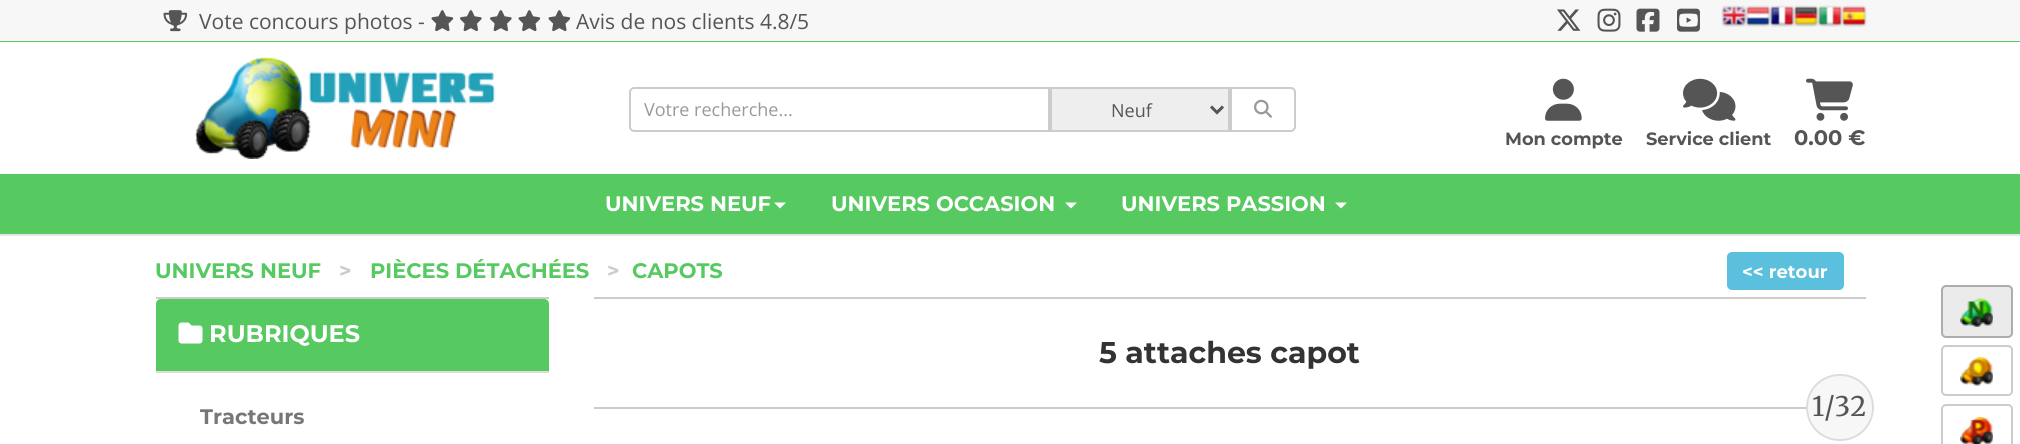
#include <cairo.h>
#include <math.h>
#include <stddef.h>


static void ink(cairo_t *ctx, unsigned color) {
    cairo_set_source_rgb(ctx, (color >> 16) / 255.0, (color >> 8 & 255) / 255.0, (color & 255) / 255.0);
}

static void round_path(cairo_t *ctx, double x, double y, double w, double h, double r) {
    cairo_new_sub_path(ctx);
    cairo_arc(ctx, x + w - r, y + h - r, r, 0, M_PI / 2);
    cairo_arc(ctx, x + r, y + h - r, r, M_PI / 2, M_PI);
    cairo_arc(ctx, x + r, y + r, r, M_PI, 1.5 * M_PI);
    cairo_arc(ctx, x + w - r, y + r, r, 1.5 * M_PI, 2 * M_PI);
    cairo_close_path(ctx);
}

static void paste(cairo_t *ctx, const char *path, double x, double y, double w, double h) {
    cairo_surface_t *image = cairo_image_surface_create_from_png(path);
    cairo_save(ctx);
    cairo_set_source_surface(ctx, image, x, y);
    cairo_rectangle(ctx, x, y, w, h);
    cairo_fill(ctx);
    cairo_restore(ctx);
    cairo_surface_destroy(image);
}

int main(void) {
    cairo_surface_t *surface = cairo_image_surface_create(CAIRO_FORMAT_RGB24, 2020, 444);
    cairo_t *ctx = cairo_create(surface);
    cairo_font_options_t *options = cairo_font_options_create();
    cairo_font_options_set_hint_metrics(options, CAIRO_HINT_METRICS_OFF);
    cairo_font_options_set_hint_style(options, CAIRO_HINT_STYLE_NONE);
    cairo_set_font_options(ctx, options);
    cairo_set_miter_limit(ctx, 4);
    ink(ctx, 0xFFFFFF);
    cairo_paint(ctx);
    ink(ctx, 0xE6E6E6);
    cairo_rectangle(ctx, 0, 234, 2020, 2);
    cairo_fill(ctx);
    ink(ctx, 0xF7F7F7);
    cairo_rectangle(ctx, 0, 0, 2020, 41);
    cairo_fill(ctx);
    paste(ctx, "media/1.png", 163, 10, 25, 22);
    cairo_select_font_face(ctx, "Open Sans", CAIRO_FONT_SLANT_NORMAL, CAIRO_FONT_WEIGHT_NORMAL);
    cairo_set_font_size(ctx, 21);
    ink(ctx, 0x555555);
    cairo_move_to(ctx, 199, 29);
    cairo_show_text(ctx, "Vote concours photos -");
    paste(ctx, "media/2.png", 431, 10, 23, 22);
    paste(ctx, "media/3.png", 460, 10, 22, 22);
    paste(ctx, "media/3.png", 490, 10, 22, 22);
    paste(ctx, "media/2.png", 518, 10, 23, 22);
    paste(ctx, "media/2.png", 548, 10, 23, 22);
    cairo_move_to(ctx, 576, 29);
    cairo_show_text(ctx, "Avis de nos clients 4.8/5");
    paste(ctx, "media/4.png", 1557, 9, 24, 22);
    paste(ctx, "media/5.png", 1597, 8, 24, 24);
    paste(ctx, "media/6.png", 1636, 8, 24, 24);
    paste(ctx, "media/7.png", 1677, 8, 23, 24);
    paste(ctx, "media/8.png", 1721, 5, 26, 22);
    paste(ctx, "media/9.png", 1745, 5, 26, 22);
    paste(ctx, "media/10.png", 1769, 5, 26, 22);
    paste(ctx, "media/11.png", 1793, 5, 26, 22);
    paste(ctx, "media/12.png", 1817, 5, 26, 22);
    paste(ctx, "media/13.png", 1841, 5, 26, 22);
    ink(ctx, 0x56C960);
    cairo_rectangle(ctx, 0, 41, 2020, 1);
    cairo_fill(ctx);
    paste(ctx, "media/14.png", 195, 56, 301, 103);
    cairo_new_path(ctx);
    cairo_move_to(ctx, 634, 88);
    cairo_line_to(ctx, 1049, 88);
    cairo_line_to(ctx, 1049, 131);
    cairo_line_to(ctx, 634, 131);
    cairo_curve_to(ctx, 632, 131, 630, 129, 630, 127);
    cairo_line_to(ctx, 630, 92);
    cairo_curve_to(ctx, 630, 90, 632, 88, 634, 88);
    cairo_close_path(ctx);
    ink(ctx, 0xCCCCCC);
    cairo_stroke(ctx);
    cairo_set_font_size(ctx, 18);
    ink(ctx, 0x999999);
    cairo_move_to(ctx, 644, 116);
    cairo_show_text(ctx, "Votre recherche...");
    ink(ctx, 0xEEEEEE);
    cairo_rectangle(ctx, 1051, 88, 178, 43);
    cairo_fill_preserve(ctx);
    ink(ctx, 0xCCCCCC);
    cairo_stroke(ctx);
    cairo_new_path(ctx);
    cairo_move_to(ctx, 1211, 106.5);
    cairo_line_to(ctx, 1217, 112.5);
    cairo_line_to(ctx, 1223, 106.5);
    ink(ctx, 0x555555);
    cairo_set_line_width(ctx, 3);
    cairo_stroke(ctx);
    cairo_move_to(ctx, 1111, 117);
    cairo_show_text(ctx, "Neuf");
    cairo_new_path(ctx);
    cairo_move_to(ctx, 1231, 88);
    cairo_line_to(ctx, 1291, 88);
    cairo_curve_to(ctx, 1293, 88, 1295, 90, 1295, 92);
    cairo_line_to(ctx, 1295, 127);
    cairo_curve_to(ctx, 1295, 129, 1293, 131, 1291, 131);
    cairo_line_to(ctx, 1231, 131);
    cairo_close_path(ctx);
    ink(ctx, 0xCCCCCC);
    cairo_set_line_width(ctx, 2);
    cairo_stroke(ctx);
    paste(ctx, "media/15.png", 1254, 99, 18, 19);
    paste(ctx, "media/16.png", 1545, 78, 37, 43);
    cairo_select_font_face(ctx, "Montserrat", CAIRO_FONT_SLANT_NORMAL, CAIRO_FONT_WEIGHT_BOLD);
    cairo_set_font_size(ctx, 17.75);
    ink(ctx, 0x555555);
    cairo_move_to(ctx, 1505, 145);
    cairo_show_text(ctx, "Mon compte");
    paste(ctx, "media/17.png", 1683, 78, 53, 43);
    cairo_move_to(ctx, 1646, 145);
    cairo_show_text(ctx, "Service client");
    paste(ctx, "media/18.png", 1806, 78, 47, 43);
    cairo_set_font_size(ctx, 21);
    cairo_move_to(ctx, 1794, 145);
    cairo_show_text(ctx, "0.00 €");
    ink(ctx, 0x56C960);
    cairo_rectangle(ctx, 0, 174, 2020, 60);
    cairo_fill(ctx);
    ink(ctx, 0xFFFFFF);
    cairo_move_to(ctx, 605, 211);
    cairo_show_text(ctx, "UNIVERS NEUF");
    cairo_new_path(ctx);
    cairo_move_to(ctx, 774, 202.5);
    cairo_line_to(ctx, 786, 202.5);
    cairo_line_to(ctx, 780, 208.5);
    cairo_close_path(ctx);
    cairo_fill(ctx);
    cairo_move_to(ctx, 831, 211);
    cairo_show_text(ctx, "UNIVERS OCCASION");
    cairo_new_path(ctx);
    cairo_move_to(ctx, 1065, 202.5);
    cairo_line_to(ctx, 1077, 202.5);
    cairo_line_to(ctx, 1071, 208.5);
    cairo_close_path(ctx);
    cairo_fill(ctx);
    cairo_move_to(ctx, 1121, 211);
    cairo_show_text(ctx, "UNIVERS PASSION");
    cairo_new_path(ctx);
    cairo_move_to(ctx, 1335, 202.5);
    cairo_line_to(ctx, 1347, 202.5);
    cairo_line_to(ctx, 1341, 208.5);
    cairo_close_path(ctx);
    cairo_fill(ctx);
    ink(ctx, 0x56C960);
    cairo_move_to(ctx, 155, 278);
    cairo_show_text(ctx, "UNIVERS NEUF");
    ink(ctx, 0xCCCCCC);
    cairo_move_to(ctx, 339, 278);
    cairo_show_text(ctx, ">");
    ink(ctx, 0x56C960);
    cairo_move_to(ctx, 370, 278);
    cairo_show_text(ctx, "PIÈCES DÉTACHÉES");
    ink(ctx, 0xCCCCCC);
    cairo_move_to(ctx, 607, 278);
    cairo_show_text(ctx, ">");
    ink(ctx, 0x56C960);
    cairo_move_to(ctx, 632, 278);
    cairo_show_text(ctx, "CAPOTS");
    ink(ctx, 0x5BC0DE);
    round_path(ctx, 1727, 252, 117, 38, 5);
    cairo_fill(ctx);
    cairo_set_font_size(ctx, 18);
    ink(ctx, 0xFFFFFF);
    cairo_move_to(ctx, 1742, 278);
    cairo_show_text(ctx, "<< retour");
    ink(ctx, 0xCCCCCC);
    cairo_rectangle(ctx, 156, 297, 393, 2);
    cairo_fill(ctx);
    ink(ctx, 0x56C960);
    cairo_new_path(ctx);
    cairo_move_to(ctx, 161, 299);
    cairo_line_to(ctx, 544, 299);
    cairo_curve_to(ctx, 547, 299, 549, 301, 549, 304);
    cairo_line_to(ctx, 549, 372);
    cairo_line_to(ctx, 156, 372);
    cairo_line_to(ctx, 156, 304);
    cairo_curve_to(ctx, 156, 301, 158, 299, 161, 299);
    cairo_close_path(ctx);
    cairo_fill(ctx);
    ink(ctx, 0xDDDDDD);
    cairo_rectangle(ctx, 156, 371, 393, 2);
    cairo_fill(ctx);
    paste(ctx, "media/19.png", 178, 322, 25, 22);
    cairo_set_font_size(ctx, 24);
    ink(ctx, 0xFFFFFF);
    cairo_move_to(ctx, 209, 342);
    cairo_show_text(ctx, "RUBRIQUES");
    cairo_set_font_size(ctx, 21);
    ink(ctx, 0x777777);
    cairo_move_to(ctx, 200, 424);
    cairo_show_text(ctx, "Tracteurs");
    ink(ctx, 0xCCCCCC);
    cairo_rectangle(ctx, 594, 297, 1272, 2);
    cairo_fill(ctx);
    cairo_rectangle(ctx, 594, 407, 1213, 2);
    cairo_fill(ctx);
    cairo_set_font_size(ctx, 30);
    ink(ctx, 0x333333);
    cairo_move_to(ctx, 1099, 363);
    cairo_show_text(ctx, "5 attaches capot");
    ink(ctx, 0xF7F7F7);
    round_path(ctx, 1807, 375, 66, 65, 32.5);
    cairo_fill_preserve(ctx);
    ink(ctx, 0xDDDDDD);
    cairo_stroke(ctx);
    cairo_select_font_face(ctx, "Merriweather", CAIRO_FONT_SLANT_NORMAL, CAIRO_FONT_WEIGHT_NORMAL);
    cairo_set_font_size(ctx, 27);
    ink(ctx, 0x555555);
    cairo_move_to(ctx, 1812, 416);
    cairo_show_text(ctx, "1/32");
    ink(ctx, 0xEBEBEB);
    round_path(ctx, 1942, 286, 70, 51, 4);
    cairo_fill_preserve(ctx);
    ink(ctx, 0xADADAD);
    cairo_stroke(ctx);
    paste(ctx, "media/20.png", 1960, 298, 33, 29);
    round_path(ctx, 1942, 346, 70, 49, 4);
    ink(ctx, 0xCCCCCC);
    cairo_stroke(ctx);
    paste(ctx, "media/21.png", 1960, 357, 33, 29);
    round_path(ctx, 1942, 405, 70, 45, 4);
    cairo_stroke(ctx);
    paste(ctx, "media/22.png", 1960, 417, 33, 27);
    cairo_surface_write_to_png(surface, "image.png");
    cairo_font_options_destroy(options);
    cairo_destroy(ctx);
    cairo_surface_destroy(surface);
    return 0;
}
